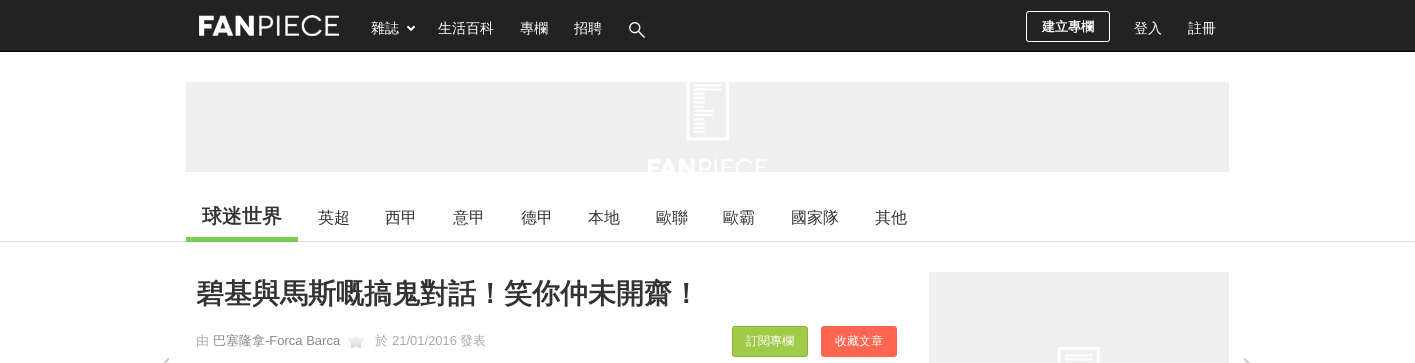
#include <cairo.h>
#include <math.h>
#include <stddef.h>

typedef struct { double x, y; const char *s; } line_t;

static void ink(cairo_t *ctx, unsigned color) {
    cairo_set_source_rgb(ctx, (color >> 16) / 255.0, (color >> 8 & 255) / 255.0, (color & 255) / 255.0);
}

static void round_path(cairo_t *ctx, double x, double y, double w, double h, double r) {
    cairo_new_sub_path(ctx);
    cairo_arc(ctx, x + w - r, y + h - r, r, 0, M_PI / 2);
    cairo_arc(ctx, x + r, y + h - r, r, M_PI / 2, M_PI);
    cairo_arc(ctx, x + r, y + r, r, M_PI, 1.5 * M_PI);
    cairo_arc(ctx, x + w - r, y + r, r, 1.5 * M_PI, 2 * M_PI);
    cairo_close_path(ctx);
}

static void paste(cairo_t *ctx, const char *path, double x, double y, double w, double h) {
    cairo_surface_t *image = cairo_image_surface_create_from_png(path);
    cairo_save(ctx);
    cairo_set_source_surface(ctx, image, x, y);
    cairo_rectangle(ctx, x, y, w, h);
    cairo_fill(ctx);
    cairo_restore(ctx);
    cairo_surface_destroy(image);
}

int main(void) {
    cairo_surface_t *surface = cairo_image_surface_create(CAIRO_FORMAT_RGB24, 1415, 363);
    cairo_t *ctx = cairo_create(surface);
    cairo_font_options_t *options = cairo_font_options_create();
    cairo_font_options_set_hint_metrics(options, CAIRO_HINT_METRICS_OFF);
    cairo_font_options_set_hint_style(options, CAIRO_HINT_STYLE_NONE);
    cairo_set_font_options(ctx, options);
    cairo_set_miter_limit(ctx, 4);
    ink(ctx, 0xFFFFFF);
    cairo_paint(ctx);
    ink(ctx, 0x222222);
    cairo_rectangle(ctx, 0, 0, 1415, 51);
    cairo_fill(ctx);
    ink(ctx, 0x000000);
    cairo_rectangle(ctx, 0, 51, 1415, 1);
    cairo_fill(ctx);
    paste(ctx, "media/1.png", 199, 15, 140, 21);
    cairo_select_font_face(ctx, "WenQuanYi Zen Hei Medium", CAIRO_FONT_SLANT_NORMAL, CAIRO_FONT_WEIGHT_NORMAL);
    cairo_set_font_size(ctx, 14);
    ink(ctx, 0xFFFFFF);
    cairo_move_to(ctx, 371, 33);
    cairo_show_text(ctx, "雜誌");
    paste(ctx, "media/2.png", 406, 25, 10, 7);
    {
        static const line_t items[] = {
            {438, 33, "生活百科"},
            {520, 33, "專欄"},
            {574, 33, "招聘"},
        };
        for (size_t i = 0; i < sizeof items / sizeof *items; i++) {
            cairo_move_to(ctx, items[i].x, items[i].y);
            cairo_show_text(ctx, items[i].s);
        }
    }
    paste(ctx, "media/3.png", 629, 21, 16, 17);
    round_path(ctx, 1026.5, 11.5, 83, 30, 2.5);
    cairo_set_line_width(ctx, 1);
    cairo_stroke(ctx);
    cairo_select_font_face(ctx, "WenQuanYi Zen Hei", CAIRO_FONT_SLANT_NORMAL, CAIRO_FONT_WEIGHT_BOLD);
    cairo_set_font_size(ctx, 13);
    cairo_move_to(ctx, 1042, 31);
    cairo_show_text(ctx, "建立專欄");
    cairo_select_font_face(ctx, "WenQuanYi Zen Hei Medium", CAIRO_FONT_SLANT_NORMAL, CAIRO_FONT_WEIGHT_NORMAL);
    cairo_set_font_size(ctx, 14);
    cairo_move_to(ctx, 1134, 33);
    cairo_show_text(ctx, "登入");
    cairo_move_to(ctx, 1188, 33);
    cairo_show_text(ctx, "註冊");
    ink(ctx, 0xEFEFEF);
    cairo_rectangle(ctx, 186, 82, 1043, 90);
    cairo_fill(ctx);
    paste(ctx, "media/4.png", 648, 82, 120, 90);
    ink(ctx, 0xDDDDDD);
    cairo_rectangle(ctx, 0, 241, 1415, 1);
    cairo_fill(ctx);
    cairo_select_font_face(ctx, "WenQuanYi Zen Hei", CAIRO_FONT_SLANT_NORMAL, CAIRO_FONT_WEIGHT_BOLD);
    cairo_set_font_size(ctx, 20);
    ink(ctx, 0x333333);
    cairo_move_to(ctx, 202, 223);
    cairo_show_text(ctx, "球迷世界");
    cairo_select_font_face(ctx, "WenQuanYi Zen Hei Medium", CAIRO_FONT_SLANT_NORMAL, CAIRO_FONT_WEIGHT_NORMAL);
    cairo_set_font_size(ctx, 16);
    {
        static const line_t items[] = {
            {318, 223, "英超"},
            {385, 223, "西甲"},
            {453, 223, "意甲"},
            {521, 223, "德甲"},
            {588, 223, "本地"},
            {656, 223, "歐聯"},
            {723, 223, "歐霸"},
            {791, 223, "國家隊"},
            {875, 223, "其他"},
        };
        for (size_t i = 0; i < sizeof items / sizeof *items; i++) {
            cairo_move_to(ctx, items[i].x, items[i].y);
            cairo_show_text(ctx, items[i].s);
        }
    }
    ink(ctx, 0x77CF54);
    cairo_rectangle(ctx, 186, 237, 112, 5);
    cairo_fill(ctx);
    cairo_select_font_face(ctx, "WenQuanYi Zen Hei", CAIRO_FONT_SLANT_NORMAL, CAIRO_FONT_WEIGHT_BOLD);
    cairo_set_font_size(ctx, 28);
    ink(ctx, 0x333333);
    cairo_move_to(ctx, 196, 303);
    cairo_show_text(ctx, "碧基與馬斯嘅搞鬼對話！笑你仲未開齋！");
    cairo_select_font_face(ctx, "WenQuanYi Zen Hei Medium", CAIRO_FONT_SLANT_NORMAL, CAIRO_FONT_WEIGHT_NORMAL);
    cairo_set_font_size(ctx, 13);
    ink(ctx, 0xAAAAAA);
    cairo_move_to(ctx, 196, 345);
    cairo_show_text(ctx, "由");
    ink(ctx, 0x888888);
    cairo_move_to(ctx, 213, 345);
    cairo_show_text(ctx, "巴塞隆拿");
    cairo_select_font_face(ctx, "Liberation Sans", CAIRO_FONT_SLANT_NORMAL, CAIRO_FONT_WEIGHT_NORMAL);
    cairo_move_to(ctx, 265, 345);
    cairo_show_text(ctx, "-Forca Barca");
    paste(ctx, "media/5.png", 348, 335, 16, 14);
    cairo_select_font_face(ctx, "WenQuanYi Zen Hei Medium", CAIRO_FONT_SLANT_NORMAL, CAIRO_FONT_WEIGHT_NORMAL);
    ink(ctx, 0xAAAAAA);
    cairo_move_to(ctx, 375, 345);
    cairo_show_text(ctx, "於");
    cairo_select_font_face(ctx, "Liberation Sans", CAIRO_FONT_SLANT_NORMAL, CAIRO_FONT_WEIGHT_NORMAL);
    cairo_move_to(ctx, 392, 345);
    cairo_show_text(ctx, "21/01/2016");
    cairo_select_font_face(ctx, "WenQuanYi Zen Hei Medium", CAIRO_FONT_SLANT_NORMAL, CAIRO_FONT_WEIGHT_NORMAL);
    cairo_move_to(ctx, 460, 345);
    cairo_show_text(ctx, "發表");
    ink(ctx, 0x9FCB48);
    round_path(ctx, 732.5, 326.5, 75, 30, 2.5);
    cairo_fill_preserve(ctx);
    ink(ctx, 0x88B334);
    cairo_stroke(ctx);
    cairo_set_font_size(ctx, 12);
    ink(ctx, 0xFFFFFF);
    cairo_move_to(ctx, 746, 345);
    cairo_show_text(ctx, "訂閱專欄");
    ink(ctx, 0xFF6550);
    round_path(ctx, 821.5, 326.5, 75, 30, 2.5);
    cairo_fill_preserve(ctx);
    cairo_stroke(ctx);
    ink(ctx, 0xFFFFFF);
    cairo_move_to(ctx, 835, 345);
    cairo_show_text(ctx, "收藏文章");
    ink(ctx, 0xEFEFEF);
    cairo_rectangle(ctx, 929, 272, 300, 91);
    cairo_fill(ctx);
    paste(ctx, "media/6.png", 1057, 347, 43, 16);
    paste(ctx, "media/7.png", 163, 358, 6, 5);
    paste(ctx, "media/8.png", 1244, 358, 6, 5);
    cairo_surface_write_to_png(surface, "image.png");
    cairo_font_options_destroy(options);
    cairo_destroy(ctx);
    cairo_surface_destroy(surface);
    return 0;
}
